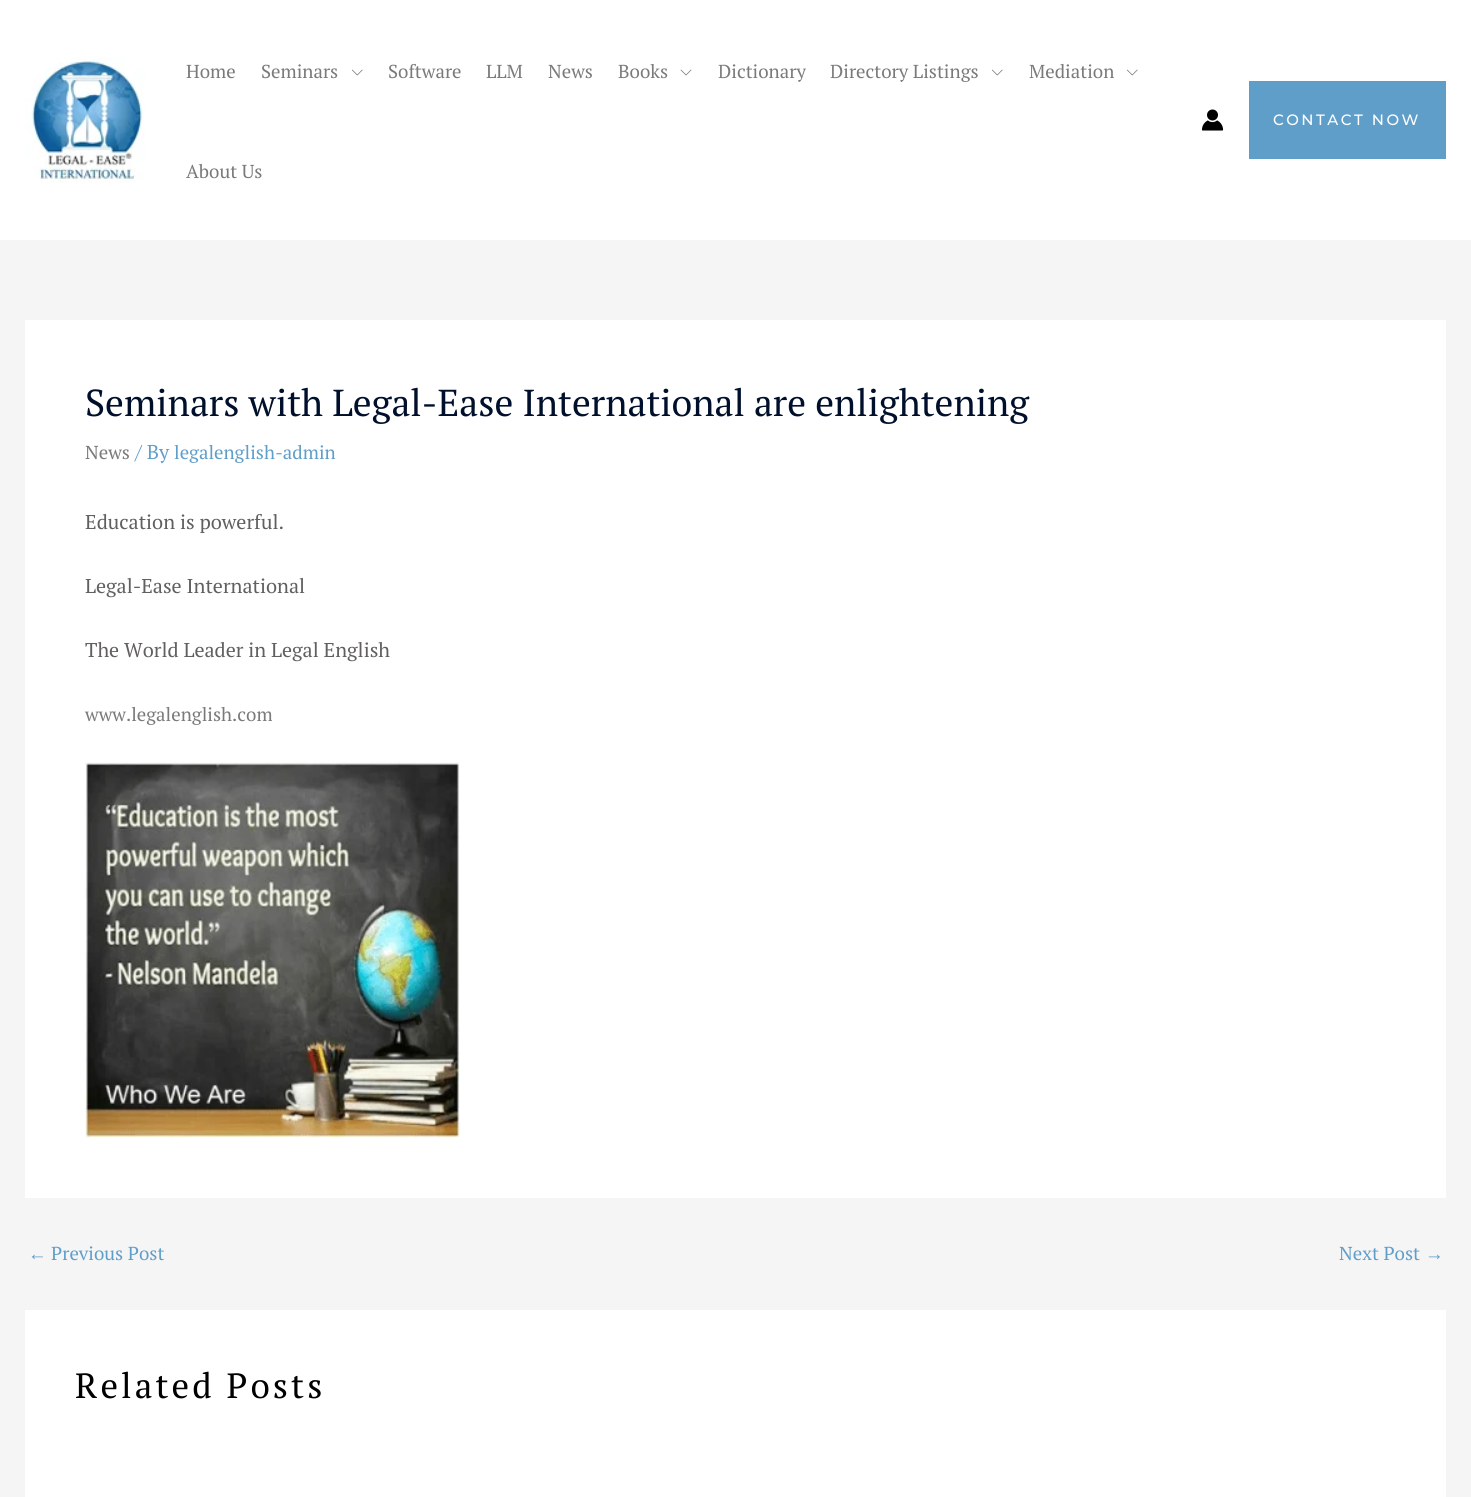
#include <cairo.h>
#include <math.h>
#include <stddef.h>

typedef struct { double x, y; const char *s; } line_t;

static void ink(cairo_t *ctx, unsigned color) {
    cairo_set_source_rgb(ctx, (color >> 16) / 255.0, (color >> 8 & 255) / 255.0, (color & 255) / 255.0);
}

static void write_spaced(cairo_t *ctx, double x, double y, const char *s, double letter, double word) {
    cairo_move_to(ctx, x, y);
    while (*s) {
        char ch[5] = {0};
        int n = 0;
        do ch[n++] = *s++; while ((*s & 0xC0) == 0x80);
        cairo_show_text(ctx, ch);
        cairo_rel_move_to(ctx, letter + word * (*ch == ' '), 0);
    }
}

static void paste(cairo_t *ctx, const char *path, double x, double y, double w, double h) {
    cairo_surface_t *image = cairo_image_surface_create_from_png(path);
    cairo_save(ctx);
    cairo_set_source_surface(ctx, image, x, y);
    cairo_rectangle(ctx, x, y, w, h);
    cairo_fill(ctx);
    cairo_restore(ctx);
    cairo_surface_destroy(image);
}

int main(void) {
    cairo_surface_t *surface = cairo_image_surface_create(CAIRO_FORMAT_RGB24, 1471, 1497);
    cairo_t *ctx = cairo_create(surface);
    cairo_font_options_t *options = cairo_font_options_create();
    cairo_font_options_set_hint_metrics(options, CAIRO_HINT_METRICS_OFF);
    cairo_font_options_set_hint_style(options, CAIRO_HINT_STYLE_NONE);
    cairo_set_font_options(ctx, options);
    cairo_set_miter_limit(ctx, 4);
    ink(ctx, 0xF5F5F5);
    cairo_paint(ctx);
    ink(ctx, 0xFFFFFF);
    cairo_rectangle(ctx, 0, 0, 1471, 240);
    cairo_fill(ctx);
    paste(ctx, "media/1.png", 25, 57, 120, 126);
    cairo_select_font_face(ctx, "PT Serif", CAIRO_FONT_SLANT_NORMAL, CAIRO_FONT_WEIGHT_NORMAL);
    cairo_set_font_size(ctx, 18.75);
    ink(ctx, 0x7A7A7A);
    cairo_move_to(ctx, 186, 78);
    cairo_show_text(ctx, "Home");
    cairo_move_to(ctx, 261, 78);
    cairo_show_text(ctx, "Seminars");
    paste(ctx, "media/2.png", 352, 69, 11, 7);
    {
        static const line_t items[] = {
            {388, 78, "Software"},
            {486, 78, "LLM"},
            {548, 78, "News"},
            {618, 78, "Books"},
        };
        for (size_t i = 0; i < sizeof items / sizeof *items; i++) {
            cairo_move_to(ctx, items[i].x, items[i].y);
            cairo_show_text(ctx, items[i].s);
        }
    }
    paste(ctx, "media/3.png", 680, 69, 12, 7);
    cairo_move_to(ctx, 718, 78);
    cairo_show_text(ctx, "Dictionary");
    cairo_move_to(ctx, 830, 78);
    cairo_show_text(ctx, "Directory Listings");
    paste(ctx, "media/2.png", 992, 69, 11, 7);
    cairo_move_to(ctx, 1029, 78);
    cairo_show_text(ctx, "Mediation");
    paste(ctx, "media/2.png", 1127, 69, 11, 7);
    cairo_move_to(ctx, 186, 178);
    cairo_show_text(ctx, "About Us");
    paste(ctx, "media/4.png", 1202, 109, 22, 22);
    ink(ctx, 0x609ECA);
    cairo_rectangle(ctx, 1249, 81, 197, 78);
    cairo_fill(ctx);
    cairo_select_font_face(ctx, "Montserrat Thin", CAIRO_FONT_SLANT_NORMAL, CAIRO_FONT_WEIGHT_NORMAL);
    cairo_set_font_size(ctx, 15);
    ink(ctx, 0xFFFFFF);
    write_spaced(ctx, 1273, 125, "CONTACT NOW", 2.5, 0);
    cairo_rectangle(ctx, 25, 320, 1421, 878);
    cairo_fill(ctx);
    cairo_select_font_face(ctx, "PT Serif", CAIRO_FONT_SLANT_NORMAL, CAIRO_FONT_WEIGHT_NORMAL);
    cairo_set_font_size(ctx, 37.5);
    ink(ctx, 0x000F2B);
    cairo_move_to(ctx, 85, 416);
    cairo_show_text(ctx, "Seminars with Legal-Ease International are enlightening");
    cairo_set_font_size(ctx, 18.75);
    ink(ctx, 0x7A7A7A);
    cairo_move_to(ctx, 85, 459);
    cairo_show_text(ctx, "News");
    cairo_set_font_size(ctx, 20);
    ink(ctx, 0x609ECA);
    cairo_move_to(ctx, 135, 459);
    cairo_show_text(ctx, "/ By");
    cairo_set_font_size(ctx, 18.75);
    cairo_move_to(ctx, 174, 459);
    cairo_show_text(ctx, "legalenglish-admin");
    cairo_set_font_size(ctx, 20);
    ink(ctx, 0x625F5F);
    {
        static const line_t items[] = {
            {85, 529, "Education is powerful."},
            {85, 593, "Legal-Ease International"},
            {85, 657, "The World Leader in Legal English"},
        };
        for (size_t i = 0; i < sizeof items / sizeof *items; i++) {
            cairo_move_to(ctx, items[i].x, items[i].y);
            cairo_show_text(ctx, items[i].s);
        }
    }
    cairo_set_font_size(ctx, 18.75);
    ink(ctx, 0x7A7A7A);
    cairo_move_to(ctx, 85, 721);
    cairo_show_text(ctx, "www.legalenglish.com");
    paste(ctx, "media/5.png", 85, 762, 375, 376);
    cairo_select_font_face(ctx, "Liberation Serif", CAIRO_FONT_SLANT_NORMAL, CAIRO_FONT_WEIGHT_NORMAL);
    ink(ctx, 0x609ECA);
    cairo_move_to(ctx, 28, 1260);
    cairo_show_text(ctx, "←");
    cairo_select_font_face(ctx, "PT Serif", CAIRO_FONT_SLANT_NORMAL, CAIRO_FONT_WEIGHT_NORMAL);
    cairo_move_to(ctx, 51, 1260);
    cairo_show_text(ctx, "Previous Post");
    cairo_move_to(ctx, 1339, 1260);
    cairo_show_text(ctx, "Next Post");
    cairo_select_font_face(ctx, "Liberation Serif", CAIRO_FONT_SLANT_NORMAL, CAIRO_FONT_WEIGHT_NORMAL);
    cairo_move_to(ctx, 1425, 1260);
    cairo_show_text(ctx, "→");
    ink(ctx, 0xFFFFFF);
    cairo_rectangle(ctx, 25, 1310, 1421, 187);
    cairo_fill(ctx);
    cairo_select_font_face(ctx, "PT Serif", CAIRO_FONT_SLANT_NORMAL, CAIRO_FONT_WEIGHT_NORMAL);
    cairo_set_font_size(ctx, 35);
    ink(ctx, 0x000000);
    write_spaced(ctx, 75, 1398, "Related Posts", 3.1, 0);
    cairo_surface_write_to_png(surface, "image.png");
    cairo_font_options_destroy(options);
    cairo_destroy(ctx);
    cairo_surface_destroy(surface);
    return 0;
}
